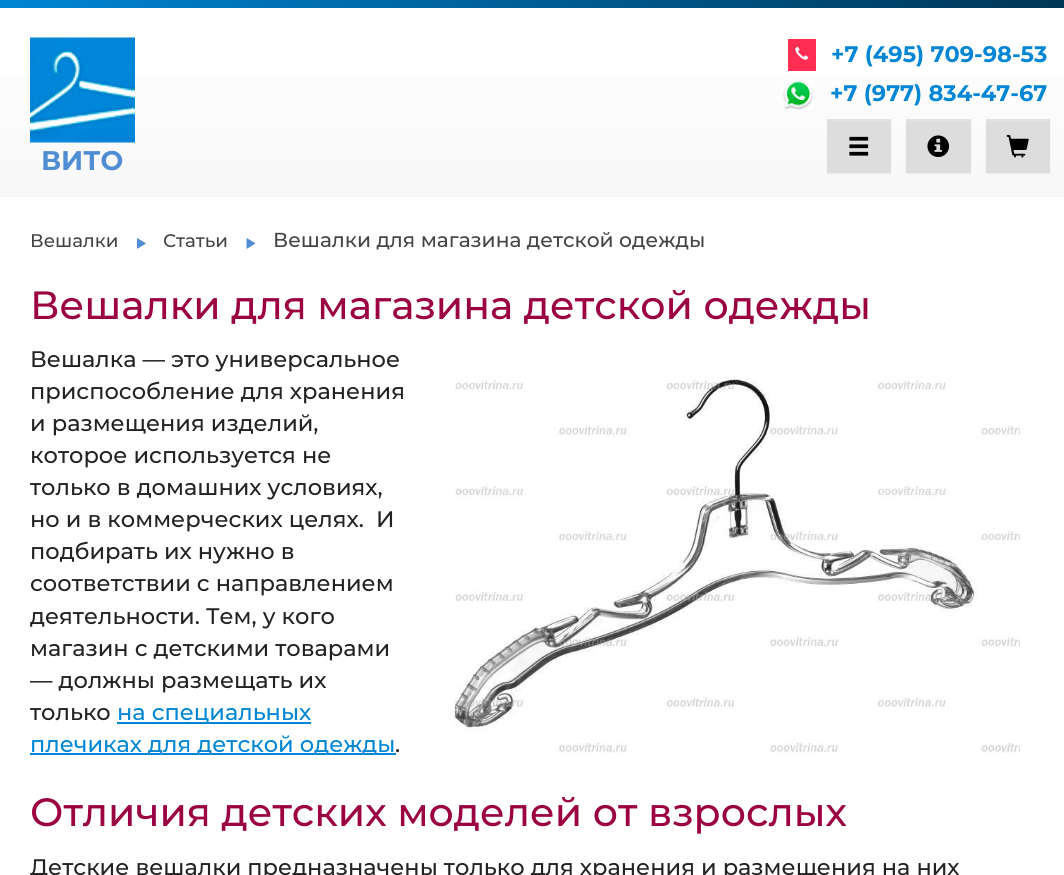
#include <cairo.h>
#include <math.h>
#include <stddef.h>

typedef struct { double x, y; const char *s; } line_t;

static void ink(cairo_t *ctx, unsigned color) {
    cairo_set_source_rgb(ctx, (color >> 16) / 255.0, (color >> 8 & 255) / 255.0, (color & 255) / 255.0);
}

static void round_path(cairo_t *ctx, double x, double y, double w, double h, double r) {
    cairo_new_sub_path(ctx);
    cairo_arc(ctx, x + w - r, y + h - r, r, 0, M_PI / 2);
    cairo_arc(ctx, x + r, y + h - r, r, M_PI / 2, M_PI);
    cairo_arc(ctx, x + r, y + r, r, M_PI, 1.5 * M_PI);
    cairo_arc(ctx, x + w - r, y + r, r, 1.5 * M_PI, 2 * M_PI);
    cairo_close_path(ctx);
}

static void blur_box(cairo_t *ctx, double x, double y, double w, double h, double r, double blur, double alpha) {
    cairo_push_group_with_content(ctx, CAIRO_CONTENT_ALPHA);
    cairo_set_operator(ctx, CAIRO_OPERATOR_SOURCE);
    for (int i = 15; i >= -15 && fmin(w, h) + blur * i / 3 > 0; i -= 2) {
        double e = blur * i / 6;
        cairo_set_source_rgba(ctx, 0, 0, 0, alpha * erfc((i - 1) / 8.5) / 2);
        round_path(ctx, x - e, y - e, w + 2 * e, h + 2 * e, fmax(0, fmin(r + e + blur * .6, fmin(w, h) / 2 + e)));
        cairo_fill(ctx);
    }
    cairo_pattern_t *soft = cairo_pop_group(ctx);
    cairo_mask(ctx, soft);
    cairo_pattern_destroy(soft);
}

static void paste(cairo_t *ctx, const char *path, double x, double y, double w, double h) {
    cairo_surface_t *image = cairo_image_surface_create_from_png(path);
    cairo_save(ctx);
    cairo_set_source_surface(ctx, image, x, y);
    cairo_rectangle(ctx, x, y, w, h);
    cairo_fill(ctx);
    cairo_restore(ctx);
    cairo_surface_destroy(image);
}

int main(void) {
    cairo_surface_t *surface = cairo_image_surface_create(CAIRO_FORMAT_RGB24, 1064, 875);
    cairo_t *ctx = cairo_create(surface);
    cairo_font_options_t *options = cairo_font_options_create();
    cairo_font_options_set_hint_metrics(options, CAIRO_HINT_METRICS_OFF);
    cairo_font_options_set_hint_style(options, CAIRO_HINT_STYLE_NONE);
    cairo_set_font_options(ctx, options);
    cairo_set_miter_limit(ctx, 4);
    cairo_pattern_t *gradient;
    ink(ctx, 0xFFFFFF);
    cairo_paint(ctx);
    gradient = cairo_pattern_create_linear(0, 3.8, 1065, 3.7);
    cairo_pattern_add_color_stop_rgba(gradient, 0, 0, 0.525, 0.835, 1);
    cairo_pattern_add_color_stop_rgba(gradient, 1, 0, 0.212, 0.333, 1);
    cairo_set_source(ctx, gradient);
    cairo_pattern_destroy(gradient);
    cairo_rectangle(ctx, 0, 0, 1064, 8);
    cairo_fill(ctx);
    gradient = cairo_pattern_create_linear(533, 7.5, 533, 197);
    cairo_pattern_add_color_stop_rgba(gradient, 0, 1, 1, 1, 1);
    cairo_pattern_add_color_stop_rgba(gradient, 1, 0.973, 0.973, 0.973, 1);
    cairo_set_source(ctx, gradient);
    cairo_pattern_destroy(gradient);
    cairo_rectangle(ctx, 0, 75, 1064, 122);
    cairo_fill(ctx);
    ink(ctx, 0xFF2D54);
    cairo_rectangle(ctx, 788, 39, 28, 32);
    cairo_fill(ctx);
    paste(ctx, "media/1.png", 795, 46, 14, 14);
    cairo_select_font_face(ctx, "Montserrat", CAIRO_FONT_SLANT_NORMAL, CAIRO_FONT_WEIGHT_BOLD);
    cairo_set_font_size(ctx, 22.5);
    ink(ctx, 0x0086D5);
    cairo_move_to(ctx, 831, 62);
    cairo_show_text(ctx, "+7 (495) 709-98-53");
    paste(ctx, "media/2.png", 781, 78, 33, 32);
    cairo_move_to(ctx, 830, 101);
    cairo_show_text(ctx, "+7 (977) 834-47-67");
    ink(ctx, 0x000000);
    blur_box(ctx, 827, 120, 64, 54, 0, 1, 0.07);
    ink(ctx, 0xDDDDDD);
    cairo_rectangle(ctx, 827, 121, 64, 52);
    cairo_fill(ctx);
    ink(ctx, 0xE2E2E2);
    cairo_rectangle(ctx, 827, 119, 64, 2);
    cairo_fill(ctx);
    paste(ctx, "media/3.png", 849, 136, 20, 20);
    ink(ctx, 0x000000);
    blur_box(ctx, 906, 120, 65, 54, 0, 1, 0.07);
    ink(ctx, 0xDDDDDD);
    cairo_rectangle(ctx, 906, 121, 65, 52);
    cairo_fill(ctx);
    ink(ctx, 0xE2E2E2);
    cairo_rectangle(ctx, 906, 119, 65, 2);
    cairo_fill(ctx);
    paste(ctx, "media/4.png", 927, 135, 23, 23);
    ink(ctx, 0x000000);
    blur_box(ctx, 986, 120, 64, 54, 0, 1, 0.07);
    ink(ctx, 0xDDDDDD);
    cairo_rectangle(ctx, 986, 121, 64, 52);
    cairo_fill(ctx);
    ink(ctx, 0xE2E2E2);
    cairo_rectangle(ctx, 986, 119, 64, 2);
    cairo_fill(ctx);
    paste(ctx, "media/5.png", 1006, 135, 23, 23);
    paste(ctx, "media/6.png", 30, 37, 105, 106);
    cairo_set_font_size(ctx, 27);
    ink(ctx, 0x508ED4);
    cairo_move_to(ctx, 41, 170);
    cairo_show_text(ctx, "ВИТО");
    cairo_select_font_face(ctx, "Montserrat Medium", CAIRO_FONT_SLANT_NORMAL, CAIRO_FONT_WEIGHT_NORMAL);
    cairo_set_font_size(ctx, 18.25);
    ink(ctx, 0x444444);
    cairo_move_to(ctx, 30, 247);
    cairo_show_text(ctx, "Вешалки");
    paste(ctx, "media/7.png", 137, 238, 9, 11);
    cairo_move_to(ctx, 163, 247);
    cairo_show_text(ctx, "Статьи");
    paste(ctx, "media/8.png", 246, 238, 10, 11);
    cairo_set_font_size(ctx, 20.25);
    cairo_move_to(ctx, 273, 247);
    cairo_show_text(ctx, "Вешалки для магазина детской одежды");
    cairo_set_font_size(ctx, 39.4);
    ink(ctx, 0x9B0041);
    cairo_move_to(ctx, 30, 319);
    cairo_show_text(ctx, "Вешалки для магазина детской одежды");
    cairo_set_font_size(ctx, 22.5);
    ink(ctx, 0x222222);
    cairo_move_to(ctx, 30, 367);
    cairo_show_text(ctx, "Вешалка — это универсальное");
    cairo_move_to(ctx, 30, 399);
    cairo_show_text(ctx, "приспособление для хранения");
    paste(ctx, "media/9.png", 454, 376, 566, 378);
    {
        static const line_t items[] = {
            {30, 431, "и размещения изделий,"},
            {30, 463, "которое используется не"},
            {30, 495, "только в домашних условиях,"},
            {30, 527, "но и в коммерческих целях.  И"},
            {30, 559, "подбирать их нужно в"},
            {30, 591, "соответствии с направлением"},
            {30, 624, "деятельности. Тем, у кого"},
            {30, 656, "магазин с детскими товарами"},
            {30, 688, "— должны размещать их"},
            {30, 720, "только"},
        };
        for (size_t i = 0; i < sizeof items / sizeof *items; i++) {
            cairo_move_to(ctx, items[i].x, items[i].y);
            cairo_show_text(ctx, items[i].s);
        }
    }
    ink(ctx, 0x0086D5);
    cairo_rectangle(ctx, 117, 722, 194, 2);
    cairo_fill(ctx);
    cairo_move_to(ctx, 117, 720);
    cairo_show_text(ctx, "на специальных");
    cairo_rectangle(ctx, 30, 753, 366, 2);
    cairo_fill(ctx);
    cairo_move_to(ctx, 30, 752);
    cairo_show_text(ctx, "плечиках для детской одежды");
    ink(ctx, 0x222222);
    cairo_move_to(ctx, 395, 752);
    cairo_show_text(ctx, ".");
    cairo_set_font_size(ctx, 39.4);
    ink(ctx, 0x9B0041);
    cairo_move_to(ctx, 30, 826);
    cairo_show_text(ctx, "Отличия детских моделей от взрослых");
    cairo_set_font_size(ctx, 22.5);
    ink(ctx, 0x222222);
    cairo_move_to(ctx, 30, 875);
    cairo_show_text(ctx, "Детские вешалки предназначены только для хранения и размещения на них");
    cairo_surface_write_to_png(surface, "image.png");
    cairo_font_options_destroy(options);
    cairo_destroy(ctx);
    cairo_surface_destroy(surface);
    return 0;
}
